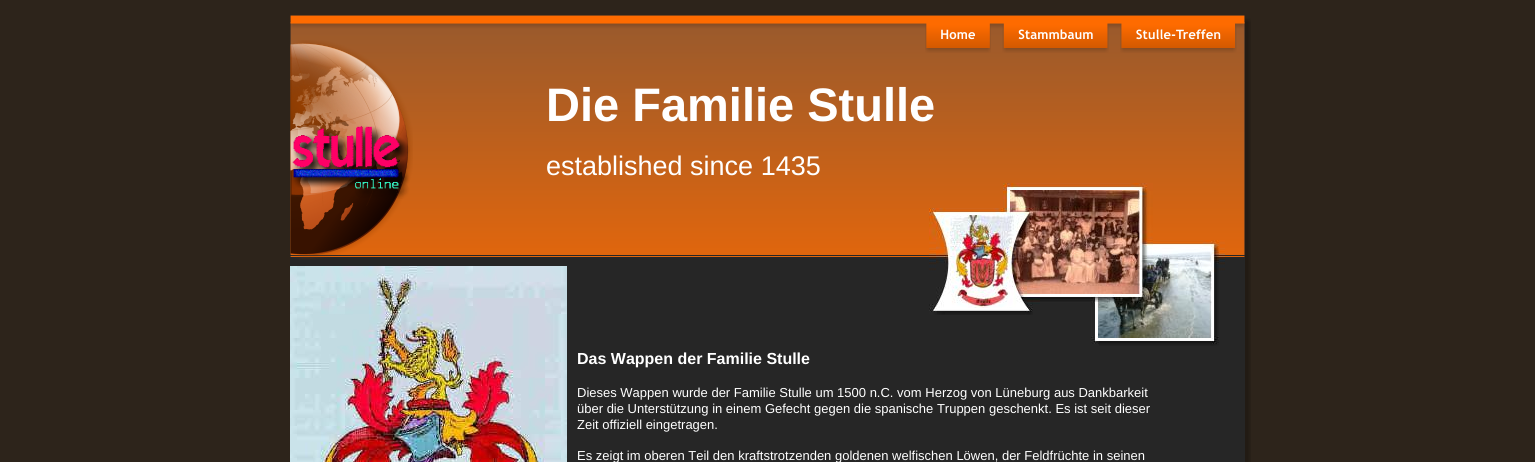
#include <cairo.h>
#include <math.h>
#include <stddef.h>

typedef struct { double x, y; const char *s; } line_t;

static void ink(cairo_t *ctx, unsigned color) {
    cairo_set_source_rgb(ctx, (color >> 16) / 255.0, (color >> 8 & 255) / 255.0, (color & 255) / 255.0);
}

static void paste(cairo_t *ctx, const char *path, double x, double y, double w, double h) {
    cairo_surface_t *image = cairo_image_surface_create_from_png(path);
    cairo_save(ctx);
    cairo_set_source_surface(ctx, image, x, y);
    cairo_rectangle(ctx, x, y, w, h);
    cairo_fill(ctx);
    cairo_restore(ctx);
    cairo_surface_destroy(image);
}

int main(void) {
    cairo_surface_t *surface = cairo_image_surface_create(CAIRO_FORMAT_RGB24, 1535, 462);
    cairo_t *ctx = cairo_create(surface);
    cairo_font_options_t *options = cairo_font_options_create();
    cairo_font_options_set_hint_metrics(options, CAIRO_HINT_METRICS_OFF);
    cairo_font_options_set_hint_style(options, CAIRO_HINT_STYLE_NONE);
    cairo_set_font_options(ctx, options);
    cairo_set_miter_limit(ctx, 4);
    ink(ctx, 0x2D241B);
    cairo_paint(ctx);
    paste(ctx, "media/1.png", 290, 15, 961, 447);
    paste(ctx, "media/2.png", 290, 15, 955, 242);
    paste(ctx, "media/3.png", 293, 40, 120, 220);
    paste(ctx, "media/4.png", 925, 23, 66, 30);
    paste(ctx, "media/5.png", 1002, 23, 107, 30);
    paste(ctx, "media/6.png", 1120, 23, 117, 30);
    paste(ctx, "media/10.png", 290, 44, 118, 211);
    paste(ctx, "media/13.png", 291, 45, 93, 125);
    paste(ctx, "media/12.png", 292, 44, 108, 105);
    paste(ctx, "media/9.png", 294, 43, 104, 81);
    paste(ctx, "media/19.png", 309, 125, 99, 130);
    paste(ctx, "media/11.png", 290, 44, 90, 134);
    paste(ctx, "media/16.png", 290, 94, 55, 102);
    paste(ctx, "media/17.png", 375, 87, 25, 61);
    paste(ctx, "media/14.png", 291, 66, 109, 114);
    paste(ctx, "media/8.png", 292, 43, 112, 163);
    paste(ctx, "media/15.png", 298, 73, 99, 121);
    paste(ctx, "media/7.png", 290, 43, 89, 35);
    cairo_select_font_face(ctx, "Liberation Sans", CAIRO_FONT_SLANT_NORMAL, CAIRO_FONT_WEIGHT_BOLD);
    cairo_set_font_size(ctx, 47);
    ink(ctx, 0xFFFFFF);
    cairo_move_to(ctx, 546, 121);
    cairo_show_text(ctx, "Die Familie Stulle");
    cairo_select_font_face(ctx, "Liberation Sans", CAIRO_FONT_SLANT_NORMAL, CAIRO_FONT_WEIGHT_NORMAL);
    cairo_set_font_size(ctx, 27);
    cairo_move_to(ctx, 546, 175);
    cairo_show_text(ctx, "established since 1435");
    paste(ctx, "media/18.png", 292, 125, 118, 74);
    paste(ctx, "media/24.png", 1091, 240, 134, 106);
    paste(ctx, "media/26.png", 1098, 247, 114, 91);
    paste(ctx, "media/20.png", 1003, 183, 150, 124);
    paste(ctx, "media/22.png", 1010, 190, 130, 104);
    paste(ctx, "media/21.png", 929, 208, 111, 107);
    paste(ctx, "media/23.png", 936, 215, 91, 93);
    paste(ctx, "media/25.png", 290, 266, 277, 196);
    cairo_select_font_face(ctx, "Liberation Sans", CAIRO_FONT_SLANT_NORMAL, CAIRO_FONT_WEIGHT_BOLD);
    cairo_set_font_size(ctx, 16);
    cairo_move_to(ctx, 577, 364);
    cairo_show_text(ctx, "Das Wappen der Familie Stulle");
    cairo_select_font_face(ctx, "Liberation Sans", CAIRO_FONT_SLANT_NORMAL, CAIRO_FONT_WEIGHT_NORMAL);
    cairo_set_font_size(ctx, 13);
    {
        static const line_t items[] = {
            {577, 397, "Dieses Wappen wurde der Familie Stulle um 1500 n.C. vom Herzog von Lüneburg aus Dankbarkeit"},
            {577, 413, "über die Unterstützung in einem Gefecht gegen die spanische Truppen geschenkt. Es ist seit dieser"},
            {577, 429, "Zeit offiziell eingetragen."},
            {577, 460, "Es zeigt im oberen Teil den kraftstrotzenden goldenen welfischen Löwen, der Feldfrüchte in seinen"},
        };
        for (size_t i = 0; i < sizeof items / sizeof *items; i++) {
            cairo_move_to(ctx, items[i].x, items[i].y);
            cairo_show_text(ctx, items[i].s);
        }
    }
    cairo_surface_write_to_png(surface, "image.png");
    cairo_font_options_destroy(options);
    cairo_destroy(ctx);
    cairo_surface_destroy(surface);
    return 0;
}
